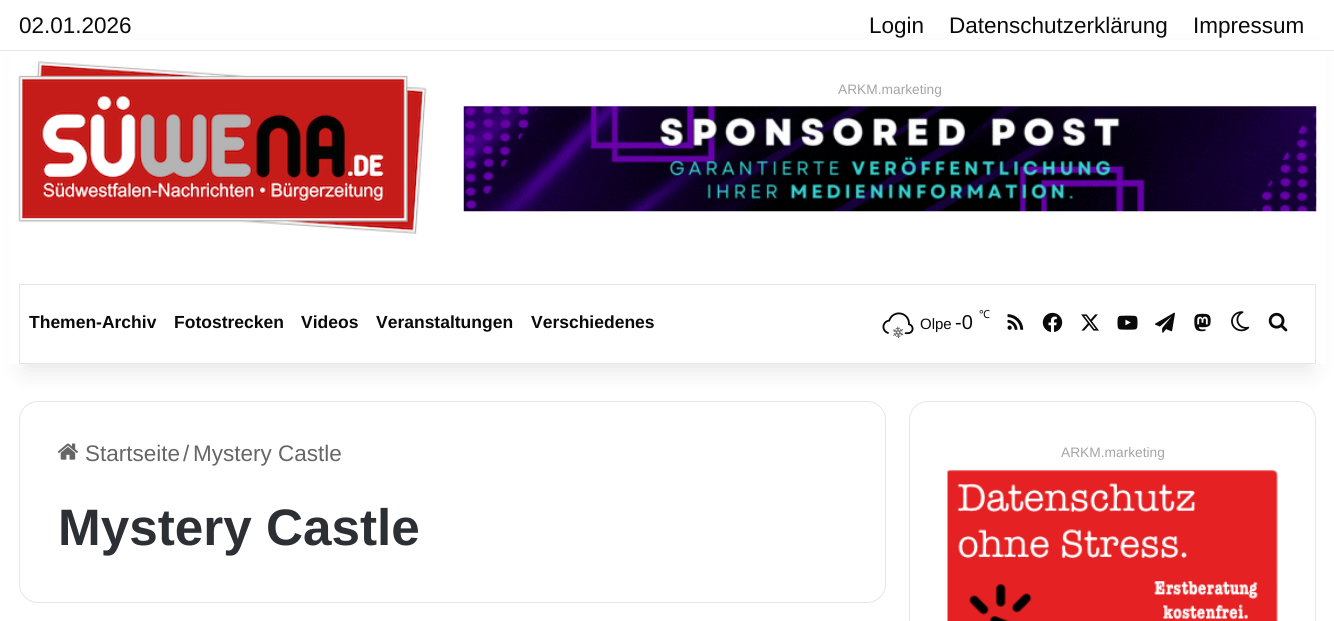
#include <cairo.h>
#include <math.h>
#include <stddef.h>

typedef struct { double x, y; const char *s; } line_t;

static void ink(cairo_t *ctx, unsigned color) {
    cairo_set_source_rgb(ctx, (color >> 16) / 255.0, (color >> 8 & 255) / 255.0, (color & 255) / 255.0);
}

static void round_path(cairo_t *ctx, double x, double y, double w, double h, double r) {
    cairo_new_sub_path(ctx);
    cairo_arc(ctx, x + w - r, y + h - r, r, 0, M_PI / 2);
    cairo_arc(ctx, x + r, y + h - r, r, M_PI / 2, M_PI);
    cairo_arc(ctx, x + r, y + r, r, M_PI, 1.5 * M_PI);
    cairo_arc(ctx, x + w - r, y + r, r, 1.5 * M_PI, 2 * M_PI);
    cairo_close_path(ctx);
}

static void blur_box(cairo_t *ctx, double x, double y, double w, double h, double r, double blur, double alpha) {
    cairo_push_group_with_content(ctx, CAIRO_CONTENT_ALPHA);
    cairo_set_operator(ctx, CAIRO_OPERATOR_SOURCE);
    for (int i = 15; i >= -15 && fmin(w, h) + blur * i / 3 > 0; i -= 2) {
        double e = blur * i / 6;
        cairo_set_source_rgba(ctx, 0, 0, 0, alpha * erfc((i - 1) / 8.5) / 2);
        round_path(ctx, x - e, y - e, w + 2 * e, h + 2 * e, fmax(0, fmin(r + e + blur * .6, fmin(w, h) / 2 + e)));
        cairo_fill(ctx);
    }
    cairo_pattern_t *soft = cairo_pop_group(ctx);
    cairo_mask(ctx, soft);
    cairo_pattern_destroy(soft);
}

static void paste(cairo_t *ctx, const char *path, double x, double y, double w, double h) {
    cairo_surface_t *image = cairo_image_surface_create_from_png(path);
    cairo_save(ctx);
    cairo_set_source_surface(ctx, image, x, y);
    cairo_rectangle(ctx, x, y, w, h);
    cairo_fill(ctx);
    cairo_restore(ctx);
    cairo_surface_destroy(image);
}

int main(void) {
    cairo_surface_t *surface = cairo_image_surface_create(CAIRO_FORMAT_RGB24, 1334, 621);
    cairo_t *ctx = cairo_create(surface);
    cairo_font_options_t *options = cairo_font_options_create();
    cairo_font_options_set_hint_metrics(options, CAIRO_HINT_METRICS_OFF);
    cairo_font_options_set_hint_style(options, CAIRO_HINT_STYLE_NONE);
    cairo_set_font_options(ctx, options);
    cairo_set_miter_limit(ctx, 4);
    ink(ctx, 0xFFFFFF);
    cairo_paint(ctx);
    round_path(ctx, 19.5, 401.5, 866, 201, 18.5);
    ink(ctx, 0xE6E6E6);
    cairo_set_line_width(ctx, 1);
    cairo_stroke(ctx);
    round_path(ctx, 909.5, 401.5, 406, 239, 18.5);
    cairo_stroke(ctx);
    ink(ctx, 0x000000);
    blur_box(ctx, 25, 56, 1285, 314, 0, 12.5, 0.1);
    ink(ctx, 0xFFFFFF);
    cairo_rectangle(ctx, 9, 40, 1317, 324);
    cairo_fill(ctx);
    ink(ctx, 0xE6E6E6);
    cairo_rectangle(ctx, 0, 50, 1334, 1);
    cairo_fill(ctx);
    cairo_select_font_face(ctx, "Liberation Sans", CAIRO_FONT_SLANT_NORMAL, CAIRO_FONT_WEIGHT_NORMAL);
    cairo_set_font_size(ctx, 22.5);
    ink(ctx, 0x0A0A0A);
    {
        static const line_t items[] = {
            {19, 33, "02.01.2026"},
            {869, 33, "Login"},
            {949, 33, "Datenschutzerklärung"},
            {1193, 33, "Impressum"},
        };
        for (size_t i = 0; i < sizeof items / sizeof *items; i++) {
            cairo_move_to(ctx, items[i].x, items[i].y);
            cairo_show_text(ctx, items[i].s);
        }
    }
    paste(ctx, "media/1.png", 18, 61, 409, 173);
    cairo_set_font_size(ctx, 13.75);
    ink(ctx, 0xA5A5A5);
    cairo_move_to(ctx, 838, 94);
    cairo_show_text(ctx, "ARKM.marketing");
    paste(ctx, "media/2.png", 463, 106, 854, 106);
    cairo_rectangle(ctx, 19.5, 284.5, 1296, 79);
    ink(ctx, 0xE6E6E6);
    cairo_stroke(ctx);
    cairo_select_font_face(ctx, "Liberation Sans", CAIRO_FONT_SLANT_NORMAL, CAIRO_FONT_WEIGHT_BOLD);
    cairo_set_font_size(ctx, 17.5);
    ink(ctx, 0x0A0A0A);
    {
        static const line_t items[] = {
            {29, 328, "Themen-Archiv"},
            {174, 328, "Fotostrecken"},
            {301, 328, "Videos"},
            {376, 328, "Veranstaltungen"},
            {531, 328, "Verschiedenes"},
        };
        for (size_t i = 0; i < sizeof items / sizeof *items; i++) {
            cairo_move_to(ctx, items[i].x, items[i].y);
            cairo_show_text(ctx, items[i].s);
        }
    }
    paste(ctx, "media/3.png", 882, 312, 32, 23);
    paste(ctx, "media/4.png", 893, 326, 11, 13);
    cairo_select_font_face(ctx, "Noto Sans", CAIRO_FONT_SLANT_NORMAL, CAIRO_FONT_WEIGHT_NORMAL);
    cairo_set_font_size(ctx, 11);
    cairo_move_to(ctx, 979, 318);
    cairo_show_text(ctx, "℃");
    cairo_select_font_face(ctx, "Liberation Sans", CAIRO_FONT_SLANT_NORMAL, CAIRO_FONT_WEIGHT_NORMAL);
    cairo_set_font_size(ctx, 15);
    cairo_move_to(ctx, 920, 329);
    cairo_show_text(ctx, "Olpe");
    cairo_set_font_size(ctx, 20);
    cairo_move_to(ctx, 955, 329);
    cairo_show_text(ctx, "-0");
    paste(ctx, "media/5.png", 1007, 314, 17, 16);
    paste(ctx, "media/6.png", 1042, 312, 21, 20);
    paste(ctx, "media/7.png", 1081, 314, 18, 17);
    paste(ctx, "media/8.png", 1117, 315, 21, 15);
    paste(ctx, "media/9.png", 1155, 312, 20, 21);
    paste(ctx, "media/10.png", 1194, 313, 17, 19);
    paste(ctx, "media/11.png", 1231, 311, 19, 21);
    paste(ctx, "media/12.png", 1268, 312, 20, 20);
    paste(ctx, "media/13.png", 57, 443, 21, 17);
    cairo_set_font_size(ctx, 22.5);
    ink(ctx, 0x666666);
    {
        static const line_t items[] = {
            {85, 461, "Startseite"},
            {183, 461, "/"},
            {193, 461, "Mystery Castle"},
        };
        for (size_t i = 0; i < sizeof items / sizeof *items; i++) {
            cairo_move_to(ctx, items[i].x, items[i].y);
            cairo_show_text(ctx, items[i].s);
        }
    }
    cairo_select_font_face(ctx, "Liberation Sans", CAIRO_FONT_SLANT_NORMAL, CAIRO_FONT_WEIGHT_BOLD);
    cairo_set_font_size(ctx, 51.25);
    ink(ctx, 0x2C2F34);
    cairo_move_to(ctx, 58, 545);
    cairo_show_text(ctx, "Mystery Castle");
    cairo_select_font_face(ctx, "Liberation Sans", CAIRO_FONT_SLANT_NORMAL, CAIRO_FONT_WEIGHT_NORMAL);
    cairo_set_font_size(ctx, 13.75);
    ink(ctx, 0xA5A5A5);
    cairo_move_to(ctx, 1061, 457);
    cairo_show_text(ctx, "ARKM.marketing");
    paste(ctx, "media/14.png", 947, 470, 331, 151);
    cairo_surface_write_to_png(surface, "image.png");
    cairo_font_options_destroy(options);
    cairo_destroy(ctx);
    cairo_surface_destroy(surface);
    return 0;
}
